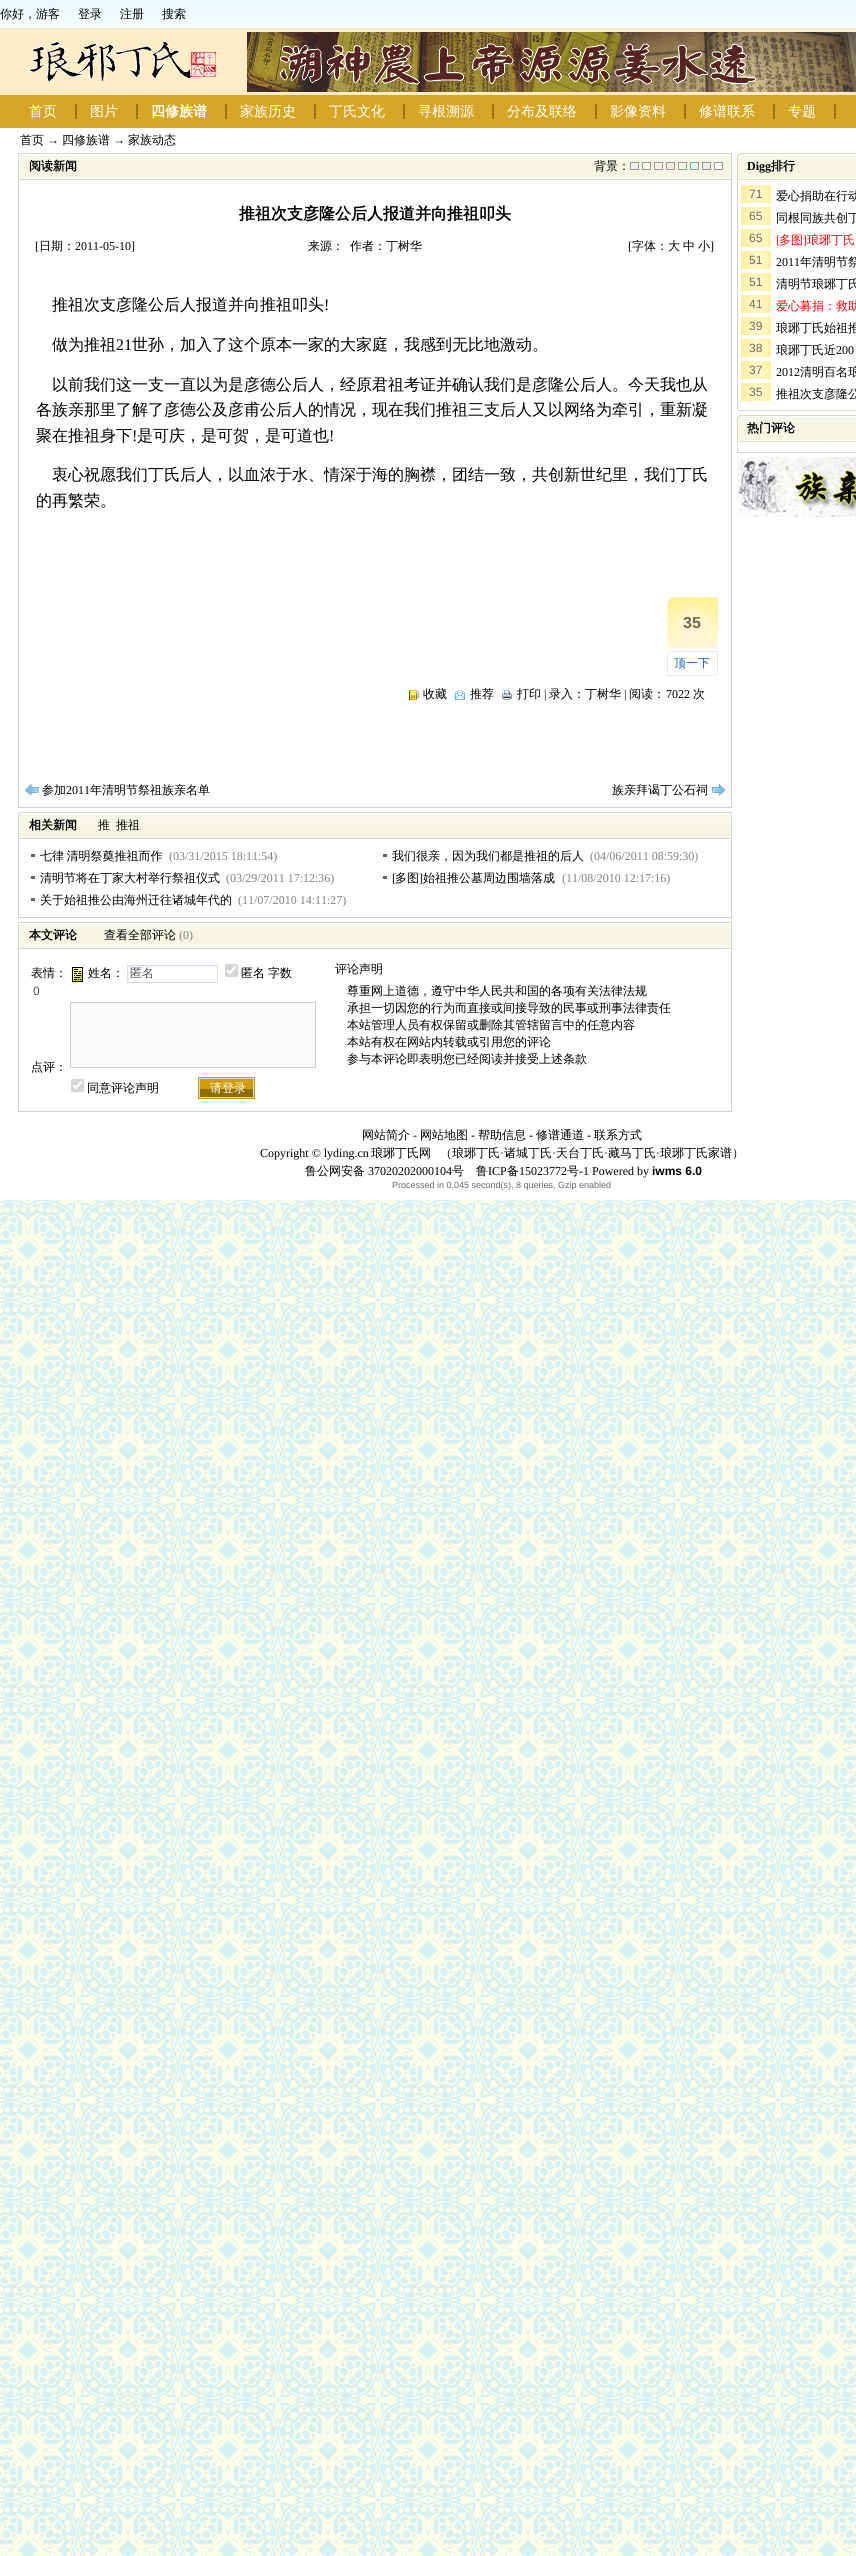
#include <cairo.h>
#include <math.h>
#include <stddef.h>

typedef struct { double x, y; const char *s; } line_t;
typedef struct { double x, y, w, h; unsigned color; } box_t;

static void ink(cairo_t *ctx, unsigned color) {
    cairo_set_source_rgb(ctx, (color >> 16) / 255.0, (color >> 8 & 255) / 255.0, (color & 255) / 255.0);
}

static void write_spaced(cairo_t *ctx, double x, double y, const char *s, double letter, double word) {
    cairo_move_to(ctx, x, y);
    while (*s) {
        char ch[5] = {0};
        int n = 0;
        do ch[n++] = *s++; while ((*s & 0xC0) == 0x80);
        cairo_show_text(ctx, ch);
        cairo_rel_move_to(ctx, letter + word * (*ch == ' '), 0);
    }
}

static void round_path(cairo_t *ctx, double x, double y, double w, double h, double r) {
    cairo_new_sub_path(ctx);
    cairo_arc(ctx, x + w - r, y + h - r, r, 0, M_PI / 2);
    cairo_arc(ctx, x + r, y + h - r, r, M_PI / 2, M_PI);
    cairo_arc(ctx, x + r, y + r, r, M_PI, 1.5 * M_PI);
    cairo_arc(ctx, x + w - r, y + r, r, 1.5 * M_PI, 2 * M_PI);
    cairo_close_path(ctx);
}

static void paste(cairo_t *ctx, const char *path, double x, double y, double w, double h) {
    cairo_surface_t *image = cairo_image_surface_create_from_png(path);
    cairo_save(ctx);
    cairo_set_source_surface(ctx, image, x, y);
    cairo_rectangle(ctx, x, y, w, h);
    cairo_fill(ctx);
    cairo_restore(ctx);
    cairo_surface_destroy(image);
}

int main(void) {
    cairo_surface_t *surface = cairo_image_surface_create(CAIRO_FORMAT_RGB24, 856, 2556);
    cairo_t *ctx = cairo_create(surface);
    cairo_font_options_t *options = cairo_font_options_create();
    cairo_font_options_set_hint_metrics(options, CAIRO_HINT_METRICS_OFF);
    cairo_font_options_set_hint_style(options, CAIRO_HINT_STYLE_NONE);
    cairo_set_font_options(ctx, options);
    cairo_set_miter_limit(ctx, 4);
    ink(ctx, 0xFFFFFF);
    cairo_paint(ctx);
    paste(ctx, "media/1.png", 0, 1200, 856, 1356);
    paste(ctx, "media/2.png", 0, 0, 856, 28);
    ink(ctx, 0xE6E6E6);
    cairo_rectangle(ctx, 0, 28, 856, 1);
    cairo_fill(ctx);
    cairo_select_font_face(ctx, "WenQuanYi Zen Hei Medium", CAIRO_FONT_SLANT_NORMAL, CAIRO_FONT_WEIGHT_NORMAL);
    cairo_set_font_size(ctx, 12);
    ink(ctx, 0x000000);
    {
        static const line_t items[] = {
            {0, 18, "你好，游客"},
            {78, 18, "登录"},
            {120, 18, "注册"},
            {162, 18, "搜索"},
        };
        for (size_t i = 0; i < sizeof items / sizeof *items; i++) {
            cairo_move_to(ctx, items[i].x, items[i].y);
            cairo_show_text(ctx, items[i].s);
        }
    }
    ink(ctx, 0xFFEDC8);
    cairo_rectangle(ctx, 0, 29, 856, 66);
    cairo_fill(ctx);
    paste(ctx, "media/3.png", 29, 41, 187, 41);
    paste(ctx, "media/4.png", 247, 32, 609, 60);
    ink(ctx, 0xD6A525);
    cairo_rectangle(ctx, 0, 95, 856, 33);
    cairo_fill(ctx);
    cairo_set_font_size(ctx, 14);
    ink(ctx, 0xFFFFFF);
    cairo_move_to(ctx, 29, 116);
    cairo_show_text(ctx, "首页");
    cairo_move_to(ctx, 90, 116);
    cairo_show_text(ctx, "图片");
    ink(ctx, 0x9B740F);
    cairo_rectangle(ctx, 75, 104, 2, 15);
    cairo_fill(ctx);
    cairo_select_font_face(ctx, "WenQuanYi Zen Hei", CAIRO_FONT_SLANT_NORMAL, CAIRO_FONT_WEIGHT_BOLD);
    ink(ctx, 0xFFFFFF);
    cairo_move_to(ctx, 151, 116);
    cairo_show_text(ctx, "四修族谱");
    ink(ctx, 0x9B740F);
    cairo_rectangle(ctx, 136, 104, 2, 15);
    cairo_fill(ctx);
    cairo_select_font_face(ctx, "WenQuanYi Zen Hei Medium", CAIRO_FONT_SLANT_NORMAL, CAIRO_FONT_WEIGHT_NORMAL);
    ink(ctx, 0xFFFFFF);
    cairo_move_to(ctx, 240, 116);
    cairo_show_text(ctx, "家族历史");
    ink(ctx, 0x9B740F);
    cairo_rectangle(ctx, 225, 104, 2, 15);
    cairo_fill(ctx);
    ink(ctx, 0xFFFFFF);
    cairo_move_to(ctx, 329, 116);
    cairo_show_text(ctx, "丁氏文化");
    ink(ctx, 0x9B740F);
    cairo_rectangle(ctx, 314, 104, 2, 15);
    cairo_fill(ctx);
    ink(ctx, 0xFFFFFF);
    cairo_move_to(ctx, 418, 116);
    cairo_show_text(ctx, "寻根溯源");
    ink(ctx, 0x9B740F);
    cairo_rectangle(ctx, 403, 104, 2, 15);
    cairo_fill(ctx);
    ink(ctx, 0xFFFFFF);
    cairo_move_to(ctx, 507, 116);
    cairo_show_text(ctx, "分布及联络");
    ink(ctx, 0x9B740F);
    cairo_rectangle(ctx, 492, 104, 2, 15);
    cairo_fill(ctx);
    ink(ctx, 0xFFFFFF);
    cairo_move_to(ctx, 610, 116);
    cairo_show_text(ctx, "影像资料");
    ink(ctx, 0x9B740F);
    cairo_rectangle(ctx, 595, 104, 2, 15);
    cairo_fill(ctx);
    ink(ctx, 0xFFFFFF);
    cairo_move_to(ctx, 699, 116);
    cairo_show_text(ctx, "修谱联系");
    ink(ctx, 0x9B740F);
    cairo_rectangle(ctx, 684, 104, 2, 15);
    cairo_fill(ctx);
    ink(ctx, 0xFFFFFF);
    cairo_move_to(ctx, 788, 116);
    cairo_show_text(ctx, "专题");
    ink(ctx, 0x9B740F);
    cairo_rectangle(ctx, 773, 104, 2, 15);
    cairo_fill(ctx);
    cairo_rectangle(ctx, 834, 104, 2, 15);
    cairo_fill(ctx);
    cairo_set_font_size(ctx, 12);
    ink(ctx, 0x000000);
    cairo_move_to(ctx, 20, 144);
    cairo_show_text(ctx, "首页");
    cairo_select_font_face(ctx, "Liberation Serif", CAIRO_FONT_SLANT_NORMAL, CAIRO_FONT_WEIGHT_NORMAL);
    cairo_move_to(ctx, 47, 144);
    cairo_show_text(ctx, "→");
    cairo_select_font_face(ctx, "WenQuanYi Zen Hei Medium", CAIRO_FONT_SLANT_NORMAL, CAIRO_FONT_WEIGHT_NORMAL);
    cairo_move_to(ctx, 62, 144);
    cairo_show_text(ctx, "四修族谱");
    cairo_select_font_face(ctx, "Liberation Serif", CAIRO_FONT_SLANT_NORMAL, CAIRO_FONT_WEIGHT_NORMAL);
    cairo_move_to(ctx, 113, 144);
    cairo_show_text(ctx, "→");
    cairo_select_font_face(ctx, "WenQuanYi Zen Hei Medium", CAIRO_FONT_SLANT_NORMAL, CAIRO_FONT_WEIGHT_NORMAL);
    cairo_move_to(ctx, 128, 144);
    cairo_show_text(ctx, "家族动态");
    paste(ctx, "media/5.png", 19, 155, 712, 24);
    cairo_rectangle(ctx, 18.5, 153.5, 713, 26);
    ink(ctx, 0xD4D4D4);
    cairo_set_line_width(ctx, 1);
    cairo_stroke(ctx);
    cairo_select_font_face(ctx, "WenQuanYi Zen Hei", CAIRO_FONT_SLANT_NORMAL, CAIRO_FONT_WEIGHT_BOLD);
    ink(ctx, 0x000000);
    cairo_move_to(ctx, 29, 170);
    cairo_show_text(ctx, "阅读新闻");
    cairo_select_font_face(ctx, "WenQuanYi Zen Hei Medium", CAIRO_FONT_SLANT_NORMAL, CAIRO_FONT_WEIGHT_NORMAL);
    cairo_move_to(ctx, 594, 170);
    cairo_show_text(ctx, "背景：");
    ink(ctx, 0xEDF0F5);
    cairo_rectangle(ctx, 630.5, 162.5, 8, 7);
    cairo_fill_preserve(ctx);
    ink(ctx, 0x999999);
    cairo_stroke(ctx);
    ink(ctx, 0xFAFBE6);
    cairo_rectangle(ctx, 642.5, 162.5, 8, 7);
    cairo_fill_preserve(ctx);
    ink(ctx, 0x999999);
    cairo_stroke(ctx);
    ink(ctx, 0xFFF2E2);
    cairo_rectangle(ctx, 654.5, 162.5, 8, 7);
    cairo_fill_preserve(ctx);
    ink(ctx, 0x999999);
    cairo_stroke(ctx);
    ink(ctx, 0xFDE6E0);
    cairo_rectangle(ctx, 666.5, 162.5, 8, 7);
    cairo_fill_preserve(ctx);
    ink(ctx, 0x999999);
    cairo_stroke(ctx);
    ink(ctx, 0xF3FFE1);
    cairo_rectangle(ctx, 678.5, 162.5, 8, 7);
    cairo_fill_preserve(ctx);
    ink(ctx, 0x999999);
    cairo_stroke(ctx);
    ink(ctx, 0xDAFAF3);
    cairo_rectangle(ctx, 690.5, 162.5, 8, 7);
    cairo_fill_preserve(ctx);
    ink(ctx, 0x999999);
    cairo_stroke(ctx);
    ink(ctx, 0xEAEAEF);
    cairo_rectangle(ctx, 702.5, 162.5, 8, 7);
    cairo_fill_preserve(ctx);
    ink(ctx, 0x999999);
    cairo_stroke(ctx);
    ink(ctx, 0xFFFFFF);
    cairo_rectangle(ctx, 714.5, 162.5, 8, 7);
    cairo_fill_preserve(ctx);
    ink(ctx, 0x999999);
    cairo_stroke(ctx);
    {
        static const box_t items[] = {
            {731, 180, 1, 628, 0xCFCFCF},
            {18, 807, 714, 1, 0xCFCFCF},
            {18, 180, 1, 628, 0xCFCFCF},
        };
        for (size_t i = 0; i < sizeof items / sizeof *items; i++) {
            ink(ctx, items[i].color);
            cairo_rectangle(ctx, items[i].x, items[i].y, items[i].w, items[i].h);
            cairo_fill(ctx);
        }
    }
    cairo_select_font_face(ctx, "WenQuanYi Zen Hei", CAIRO_FONT_SLANT_NORMAL, CAIRO_FONT_WEIGHT_BOLD);
    cairo_set_font_size(ctx, 16);
    ink(ctx, 0x000000);
    cairo_move_to(ctx, 239, 219);
    cairo_show_text(ctx, "推祖次支彦隆公后人报道并向推祖叩头");
    cairo_select_font_face(ctx, "Liberation Serif", CAIRO_FONT_SLANT_NORMAL, CAIRO_FONT_WEIGHT_NORMAL);
    cairo_set_font_size(ctx, 12);
    cairo_move_to(ctx, 35, 250);
    cairo_show_text(ctx, "[");
    cairo_select_font_face(ctx, "WenQuanYi Zen Hei Medium", CAIRO_FONT_SLANT_NORMAL, CAIRO_FONT_WEIGHT_NORMAL);
    cairo_move_to(ctx, 39, 250);
    cairo_show_text(ctx, "日期：");
    cairo_select_font_face(ctx, "Liberation Serif", CAIRO_FONT_SLANT_NORMAL, CAIRO_FONT_WEIGHT_NORMAL);
    cairo_move_to(ctx, 75, 250);
    cairo_show_text(ctx, "2011-05-10]");
    cairo_select_font_face(ctx, "WenQuanYi Zen Hei Medium", CAIRO_FONT_SLANT_NORMAL, CAIRO_FONT_WEIGHT_NORMAL);
    cairo_move_to(ctx, 308, 250);
    cairo_show_text(ctx, "来源：");
    cairo_move_to(ctx, 350, 250);
    cairo_show_text(ctx, "作者：丁树华");
    cairo_select_font_face(ctx, "Liberation Serif", CAIRO_FONT_SLANT_NORMAL, CAIRO_FONT_WEIGHT_NORMAL);
    cairo_move_to(ctx, 628, 250);
    cairo_show_text(ctx, "[");
    cairo_select_font_face(ctx, "WenQuanYi Zen Hei Medium", CAIRO_FONT_SLANT_NORMAL, CAIRO_FONT_WEIGHT_NORMAL);
    {
        static const line_t items[] = {
            {632, 250, "字体：大"},
            {683, 250, "中"},
            {698, 250, "小"},
        };
        for (size_t i = 0; i < sizeof items / sizeof *items; i++) {
            cairo_move_to(ctx, items[i].x, items[i].y);
            cairo_show_text(ctx, items[i].s);
        }
    }
    cairo_select_font_face(ctx, "Liberation Serif", CAIRO_FONT_SLANT_NORMAL, CAIRO_FONT_WEIGHT_NORMAL);
    cairo_move_to(ctx, 710, 250);
    cairo_show_text(ctx, "]");
    cairo_select_font_face(ctx, "WenQuanYi Zen Hei Medium", CAIRO_FONT_SLANT_NORMAL, CAIRO_FONT_WEIGHT_NORMAL);
    cairo_set_font_size(ctx, 16);
    cairo_move_to(ctx, 52, 310);
    cairo_show_text(ctx, "推祖次支彦隆公后人报道并向推祖叩头");
    cairo_select_font_face(ctx, "Liberation Serif", CAIRO_FONT_SLANT_NORMAL, CAIRO_FONT_WEIGHT_NORMAL);
    cairo_move_to(ctx, 324, 310);
    cairo_show_text(ctx, "!");
    cairo_select_font_face(ctx, "WenQuanYi Zen Hei Medium", CAIRO_FONT_SLANT_NORMAL, CAIRO_FONT_WEIGHT_NORMAL);
    cairo_move_to(ctx, 52, 350);
    cairo_show_text(ctx, "做为推祖");
    cairo_select_font_face(ctx, "Liberation Serif", CAIRO_FONT_SLANT_NORMAL, CAIRO_FONT_WEIGHT_NORMAL);
    cairo_move_to(ctx, 116, 350);
    cairo_show_text(ctx, "21");
    cairo_select_font_face(ctx, "WenQuanYi Zen Hei Medium", CAIRO_FONT_SLANT_NORMAL, CAIRO_FONT_WEIGHT_NORMAL);
    {
        static const line_t items[] = {
            {132, 350, "世孙，加入了这个原本一家的大家庭，我感到无比地激动。"},
            {52, 390, "以前我们这一支一直以为是彦德公后人，经原君祖考证并确认我们是彦隆公后人。今天我也从"},
            {36, 415, "各族亲那里了解了彦德公及彦甫公后人的情况，现在我们推祖三支后人又以网络为牵引，重新凝"},
            {36, 441, "聚在推祖身下"},
        };
        for (size_t i = 0; i < sizeof items / sizeof *items; i++) {
            cairo_move_to(ctx, items[i].x, items[i].y);
            cairo_show_text(ctx, items[i].s);
        }
    }
    cairo_select_font_face(ctx, "Liberation Serif", CAIRO_FONT_SLANT_NORMAL, CAIRO_FONT_WEIGHT_NORMAL);
    cairo_move_to(ctx, 132, 441);
    cairo_show_text(ctx, "!");
    cairo_select_font_face(ctx, "WenQuanYi Zen Hei Medium", CAIRO_FONT_SLANT_NORMAL, CAIRO_FONT_WEIGHT_NORMAL);
    cairo_move_to(ctx, 137, 441);
    cairo_show_text(ctx, "是可庆，是可贺，是可道也");
    cairo_select_font_face(ctx, "Liberation Serif", CAIRO_FONT_SLANT_NORMAL, CAIRO_FONT_WEIGHT_NORMAL);
    cairo_move_to(ctx, 329, 441);
    cairo_show_text(ctx, "!");
    cairo_select_font_face(ctx, "WenQuanYi Zen Hei Medium", CAIRO_FONT_SLANT_NORMAL, CAIRO_FONT_WEIGHT_NORMAL);
    cairo_move_to(ctx, 52, 480);
    cairo_show_text(ctx, "衷心祝愿我们丁氏后人，以血浓于水、情深于海的胸襟，团结一致，共创新世纪里，我们丁氏");
    cairo_move_to(ctx, 36, 506);
    cairo_show_text(ctx, "的再繁荣。");
    paste(ctx, "media/6.png", 667, 597, 51, 52);
    cairo_select_font_face(ctx, "Liberation Sans", CAIRO_FONT_SLANT_NORMAL, CAIRO_FONT_WEIGHT_BOLD);
    ink(ctx, 0x736948);
    cairo_move_to(ctx, 683, 628);
    cairo_show_text(ctx, "35");
    paste(ctx, "media/7.png", 667, 651, 51, 25);
    cairo_select_font_face(ctx, "WenQuanYi Zen Hei Medium", CAIRO_FONT_SLANT_NORMAL, CAIRO_FONT_WEIGHT_NORMAL);
    cairo_set_font_size(ctx, 12);
    ink(ctx, 0x0F5CC3);
    cairo_move_to(ctx, 674, 667);
    cairo_show_text(ctx, "顶一下");
    paste(ctx, "media/8.png", 409, 690, 10, 10);
    ink(ctx, 0x000000);
    cairo_move_to(ctx, 423, 698);
    cairo_show_text(ctx, "收藏");
    paste(ctx, "media/9.png", 455, 690, 10, 10);
    cairo_move_to(ctx, 470, 698);
    cairo_show_text(ctx, "推荐");
    paste(ctx, "media/10.png", 502, 690, 10, 10);
    cairo_move_to(ctx, 517, 698);
    cairo_show_text(ctx, "打印");
    cairo_select_font_face(ctx, "Liberation Serif", CAIRO_FONT_SLANT_NORMAL, CAIRO_FONT_WEIGHT_NORMAL);
    cairo_move_to(ctx, 544, 698);
    cairo_show_text(ctx, "|");
    cairo_select_font_face(ctx, "WenQuanYi Zen Hei Medium", CAIRO_FONT_SLANT_NORMAL, CAIRO_FONT_WEIGHT_NORMAL);
    cairo_move_to(ctx, 549, 698);
    cairo_show_text(ctx, "录入：丁树华");
    cairo_select_font_face(ctx, "Liberation Serif", CAIRO_FONT_SLANT_NORMAL, CAIRO_FONT_WEIGHT_NORMAL);
    cairo_move_to(ctx, 624, 698);
    cairo_show_text(ctx, "|");
    cairo_select_font_face(ctx, "WenQuanYi Zen Hei Medium", CAIRO_FONT_SLANT_NORMAL, CAIRO_FONT_WEIGHT_NORMAL);
    cairo_move_to(ctx, 629, 698);
    cairo_show_text(ctx, "阅读：");
    cairo_select_font_face(ctx, "Liberation Serif", CAIRO_FONT_SLANT_NORMAL, CAIRO_FONT_WEIGHT_NORMAL);
    cairo_move_to(ctx, 666, 698);
    cairo_show_text(ctx, "7022");
    cairo_select_font_face(ctx, "WenQuanYi Zen Hei Medium", CAIRO_FONT_SLANT_NORMAL, CAIRO_FONT_WEIGHT_NORMAL);
    cairo_move_to(ctx, 693, 698);
    cairo_show_text(ctx, "次");
    paste(ctx, "media/11.png", 25, 784, 14, 12);
    cairo_move_to(ctx, 42, 794);
    cairo_show_text(ctx, "参加");
    cairo_select_font_face(ctx, "Liberation Serif", CAIRO_FONT_SLANT_NORMAL, CAIRO_FONT_WEIGHT_NORMAL);
    cairo_move_to(ctx, 66, 794);
    cairo_show_text(ctx, "2011");
    cairo_select_font_face(ctx, "WenQuanYi Zen Hei Medium", CAIRO_FONT_SLANT_NORMAL, CAIRO_FONT_WEIGHT_NORMAL);
    cairo_move_to(ctx, 90, 794);
    cairo_show_text(ctx, "年清明节祭祖族亲名单");
    paste(ctx, "media/12.png", 712, 784, 13, 12);
    cairo_move_to(ctx, 612, 794);
    cairo_show_text(ctx, "族亲拜谒丁公石祠");
    paste(ctx, "media/5.png", 19, 814, 712, 24);
    cairo_rectangle(ctx, 18.5, 812.5, 713, 26);
    ink(ctx, 0xD4D4D4);
    cairo_stroke(ctx);
    cairo_select_font_face(ctx, "WenQuanYi Zen Hei", CAIRO_FONT_SLANT_NORMAL, CAIRO_FONT_WEIGHT_BOLD);
    ink(ctx, 0x000000);
    cairo_move_to(ctx, 29, 829);
    cairo_show_text(ctx, "相关新闻");
    cairo_select_font_face(ctx, "WenQuanYi Zen Hei Medium", CAIRO_FONT_SLANT_NORMAL, CAIRO_FONT_WEIGHT_NORMAL);
    cairo_move_to(ctx, 98, 829);
    cairo_show_text(ctx, "推");
    cairo_move_to(ctx, 116, 829);
    cairo_show_text(ctx, "推祖");
    {
        static const box_t items[] = {
            {731, 839, 1, 79, 0xCFCFCF},
            {18, 917, 714, 1, 0xCFCFCF},
            {18, 839, 1, 79, 0xCFCFCF},
            {31, 854, 4, 3, 0x666666},
        };
        for (size_t i = 0; i < sizeof items / sizeof *items; i++) {
            ink(ctx, items[i].color);
            cairo_rectangle(ctx, items[i].x, items[i].y, items[i].w, items[i].h);
            cairo_fill(ctx);
        }
    }
    ink(ctx, 0x000000);
    write_spaced(ctx, 40, 860, "七律 清明祭奠推祖而作", 0, -1);
    cairo_select_font_face(ctx, "Liberation Serif", CAIRO_FONT_SLANT_NORMAL, CAIRO_FONT_WEIGHT_NORMAL);
    ink(ctx, 0x808080);
    cairo_move_to(ctx, 169, 860);
    cairo_show_text(ctx, "(03/31/2015 18:11:54)");
    ink(ctx, 0x666666);
    cairo_rectangle(ctx, 31, 876, 4, 3);
    cairo_fill(ctx);
    cairo_select_font_face(ctx, "WenQuanYi Zen Hei Medium", CAIRO_FONT_SLANT_NORMAL, CAIRO_FONT_WEIGHT_NORMAL);
    ink(ctx, 0x000000);
    cairo_move_to(ctx, 40, 882);
    cairo_show_text(ctx, "清明节将在丁家大村举行祭祖仪式");
    cairo_select_font_face(ctx, "Liberation Serif", CAIRO_FONT_SLANT_NORMAL, CAIRO_FONT_WEIGHT_NORMAL);
    ink(ctx, 0x808080);
    cairo_move_to(ctx, 226, 882);
    cairo_show_text(ctx, "(03/29/2011 17:12:36)");
    ink(ctx, 0x666666);
    cairo_rectangle(ctx, 31, 898, 4, 3);
    cairo_fill(ctx);
    cairo_select_font_face(ctx, "WenQuanYi Zen Hei Medium", CAIRO_FONT_SLANT_NORMAL, CAIRO_FONT_WEIGHT_NORMAL);
    ink(ctx, 0x000000);
    cairo_move_to(ctx, 40, 904);
    cairo_show_text(ctx, "关于始祖推公由海州迁往诸城年代的");
    cairo_select_font_face(ctx, "Liberation Serif", CAIRO_FONT_SLANT_NORMAL, CAIRO_FONT_WEIGHT_NORMAL);
    ink(ctx, 0x808080);
    cairo_move_to(ctx, 238, 904);
    cairo_show_text(ctx, "(11/07/2010 14:11:27)");
    ink(ctx, 0x666666);
    cairo_rectangle(ctx, 383, 854, 4, 3);
    cairo_fill(ctx);
    cairo_select_font_face(ctx, "WenQuanYi Zen Hei Medium", CAIRO_FONT_SLANT_NORMAL, CAIRO_FONT_WEIGHT_NORMAL);
    ink(ctx, 0x000000);
    cairo_move_to(ctx, 392, 860);
    cairo_show_text(ctx, "我们很亲，因为我们都是推祖的后人");
    cairo_select_font_face(ctx, "Liberation Serif", CAIRO_FONT_SLANT_NORMAL, CAIRO_FONT_WEIGHT_NORMAL);
    ink(ctx, 0x808080);
    cairo_move_to(ctx, 590, 860);
    cairo_show_text(ctx, "(04/06/2011 08:59:30)");
    ink(ctx, 0x666666);
    cairo_rectangle(ctx, 383, 876, 4, 3);
    cairo_fill(ctx);
    ink(ctx, 0x000000);
    cairo_move_to(ctx, 392, 882);
    cairo_show_text(ctx, "[");
    cairo_select_font_face(ctx, "WenQuanYi Zen Hei Medium", CAIRO_FONT_SLANT_NORMAL, CAIRO_FONT_WEIGHT_NORMAL);
    cairo_move_to(ctx, 395, 882);
    cairo_show_text(ctx, "多图");
    cairo_select_font_face(ctx, "Liberation Serif", CAIRO_FONT_SLANT_NORMAL, CAIRO_FONT_WEIGHT_NORMAL);
    cairo_move_to(ctx, 419, 882);
    cairo_show_text(ctx, "]");
    cairo_select_font_face(ctx, "WenQuanYi Zen Hei Medium", CAIRO_FONT_SLANT_NORMAL, CAIRO_FONT_WEIGHT_NORMAL);
    cairo_move_to(ctx, 423, 882);
    cairo_show_text(ctx, "始祖推公墓周边围墙落成");
    cairo_select_font_face(ctx, "Liberation Serif", CAIRO_FONT_SLANT_NORMAL, CAIRO_FONT_WEIGHT_NORMAL);
    ink(ctx, 0x808080);
    cairo_move_to(ctx, 562, 882);
    cairo_show_text(ctx, "(11/08/2010 12:17:16)");
    paste(ctx, "media/5.png", 19, 924, 712, 24);
    cairo_rectangle(ctx, 18.5, 922.5, 713, 26);
    ink(ctx, 0xD4D4D4);
    cairo_stroke(ctx);
    cairo_select_font_face(ctx, "WenQuanYi Zen Hei", CAIRO_FONT_SLANT_NORMAL, CAIRO_FONT_WEIGHT_BOLD);
    ink(ctx, 0x000000);
    cairo_move_to(ctx, 29, 939);
    cairo_show_text(ctx, "本文评论");
    cairo_select_font_face(ctx, "WenQuanYi Zen Hei Medium", CAIRO_FONT_SLANT_NORMAL, CAIRO_FONT_WEIGHT_NORMAL);
    cairo_move_to(ctx, 104, 939);
    cairo_show_text(ctx, "查看全部评论");
    cairo_select_font_face(ctx, "Liberation Serif", CAIRO_FONT_SLANT_NORMAL, CAIRO_FONT_WEIGHT_NORMAL);
    ink(ctx, 0x808080);
    cairo_move_to(ctx, 179, 939);
    cairo_show_text(ctx, "(0)");
    {
        static const box_t items[] = {
            {731, 949, 1, 163, 0xCFCFCF},
            {18, 1111, 714, 1, 0xCFCFCF},
            {18, 949, 1, 163, 0xCFCFCF},
        };
        for (size_t i = 0; i < sizeof items / sizeof *items; i++) {
            ink(ctx, items[i].color);
            cairo_rectangle(ctx, items[i].x, items[i].y, items[i].w, items[i].h);
            cairo_fill(ctx);
        }
    }
    cairo_select_font_face(ctx, "WenQuanYi Zen Hei Medium", CAIRO_FONT_SLANT_NORMAL, CAIRO_FONT_WEIGHT_NORMAL);
    ink(ctx, 0x000000);
    cairo_move_to(ctx, 31, 977);
    cairo_show_text(ctx, "表情：");
    paste(ctx, "media/13.png", 72, 967, 11, 15);
    cairo_move_to(ctx, 88, 977);
    cairo_show_text(ctx, "姓名：");
    paste(ctx, "media/14.png", 128, 966, 89, 16);
    cairo_rectangle(ctx, 127.5, 965.5, 90, 17);
    ink(ctx, 0xD5DEE9);
    cairo_stroke(ctx);
    ink(ctx, 0x545454);
    cairo_move_to(ctx, 130, 977);
    cairo_show_text(ctx, "匿名");
    ink(ctx, 0xD6D6D6);
    round_path(ctx, 225, 964, 13, 13, 2);
    cairo_fill(ctx);
    cairo_new_path(ctx);
    cairo_move_to(ctx, 227.5, 970.5);
    cairo_line_to(ctx, 230, 973);
    cairo_line_to(ctx, 235.5, 966.5);
    ink(ctx, 0xFFFFFF);
    cairo_set_line_width(ctx, 2.1);
    cairo_stroke(ctx);
    ink(ctx, 0x000000);
    cairo_move_to(ctx, 241, 977);
    cairo_show_text(ctx, "匿名");
    cairo_move_to(ctx, 268, 977);
    cairo_show_text(ctx, "字数");
    cairo_select_font_face(ctx, "Liberation Sans", CAIRO_FONT_SLANT_NORMAL, CAIRO_FONT_WEIGHT_NORMAL);
    ink(ctx, 0x545454);
    cairo_move_to(ctx, 33, 995);
    cairo_show_text(ctx, "0");
    cairo_select_font_face(ctx, "WenQuanYi Zen Hei Medium", CAIRO_FONT_SLANT_NORMAL, CAIRO_FONT_WEIGHT_NORMAL);
    ink(ctx, 0x000000);
    cairo_move_to(ctx, 31, 1071);
    cairo_show_text(ctx, "点评：");
    ink(ctx, 0xFAFAFA);
    cairo_rectangle(ctx, 70.5, 1002.5, 245, 65);
    cairo_fill_preserve(ctx);
    ink(ctx, 0xCCCCCC);
    cairo_set_line_width(ctx, 1);
    cairo_stroke(ctx);
    ink(ctx, 0xD6D6D6);
    round_path(ctx, 71, 1079, 13, 13, 2);
    cairo_fill(ctx);
    cairo_new_path(ctx);
    cairo_move_to(ctx, 73.5, 1085.5);
    cairo_line_to(ctx, 76, 1088);
    cairo_line_to(ctx, 81.5, 1081.5);
    ink(ctx, 0xFFFFFF);
    cairo_set_line_width(ctx, 2.1);
    cairo_stroke(ctx);
    ink(ctx, 0x000000);
    cairo_move_to(ctx, 87, 1092);
    cairo_show_text(ctx, "同意评论声明");
    paste(ctx, "media/15.png", 198, 1077, 60, 22);
    ink(ctx, 0xFFFFFF);
    cairo_move_to(ctx, 210, 1092);
    cairo_show_text(ctx, "请登录");
    ink(ctx, 0x000000);
    {
        static const line_t items[] = {
            {335, 973, "评论声明"},
            {347, 995, "尊重网上道德，遵守中华人民共和国的各项有关法律法规"},
            {347, 1012, "承担一切因您的行为而直接或间接导致的民事或刑事法律责任"},
            {347, 1029, "本站管理人员有权保留或删除其管辖留言中的任意内容"},
            {347, 1046, "本站有权在网站内转载或引用您的评论"},
            {347, 1063, "参与本评论即表明您已经阅读并接受上述条款"},
        };
        for (size_t i = 0; i < sizeof items / sizeof *items; i++) {
            cairo_move_to(ctx, items[i].x, items[i].y);
            cairo_show_text(ctx, items[i].s);
        }
    }
    paste(ctx, "media/16.png", 737, 153, 119, 27);
    cairo_select_font_face(ctx, "Liberation Serif", CAIRO_FONT_SLANT_NORMAL, CAIRO_FONT_WEIGHT_BOLD);
    cairo_move_to(ctx, 747, 170);
    cairo_show_text(ctx, "Digg");
    cairo_select_font_face(ctx, "WenQuanYi Zen Hei", CAIRO_FONT_SLANT_NORMAL, CAIRO_FONT_WEIGHT_BOLD);
    cairo_move_to(ctx, 771, 170);
    cairo_show_text(ctx, "排行");
    ink(ctx, 0xD5D5D5);
    cairo_rectangle(ctx, 737, 410, 119, 1);
    cairo_fill(ctx);
    cairo_rectangle(ctx, 737, 180, 1, 231);
    cairo_fill(ctx);
    paste(ctx, "media/17.png", 741, 185, 30, 18);
    cairo_select_font_face(ctx, "Liberation Sans", CAIRO_FONT_SLANT_NORMAL, CAIRO_FONT_WEIGHT_NORMAL);
    ink(ctx, 0x736948);
    cairo_move_to(ctx, 749, 198);
    cairo_show_text(ctx, "71");
    cairo_select_font_face(ctx, "WenQuanYi Zen Hei Medium", CAIRO_FONT_SLANT_NORMAL, CAIRO_FONT_WEIGHT_NORMAL);
    ink(ctx, 0x000000);
    write_spaced(ctx, 776, 200, "爱心捐助在行动", 0, -1);
    paste(ctx, "media/17.png", 741, 207, 30, 18);
    cairo_select_font_face(ctx, "Liberation Sans", CAIRO_FONT_SLANT_NORMAL, CAIRO_FONT_WEIGHT_NORMAL);
    ink(ctx, 0x736948);
    cairo_move_to(ctx, 749, 220);
    cairo_show_text(ctx, "65");
    cairo_select_font_face(ctx, "WenQuanYi Zen Hei Medium", CAIRO_FONT_SLANT_NORMAL, CAIRO_FONT_WEIGHT_NORMAL);
    ink(ctx, 0x000000);
    cairo_move_to(ctx, 776, 222);
    cairo_show_text(ctx, "同根同族共创丁");
    paste(ctx, "media/17.png", 741, 229, 30, 18);
    cairo_select_font_face(ctx, "Liberation Sans", CAIRO_FONT_SLANT_NORMAL, CAIRO_FONT_WEIGHT_NORMAL);
    ink(ctx, 0x736948);
    cairo_move_to(ctx, 749, 242);
    cairo_show_text(ctx, "65");
    cairo_select_font_face(ctx, "Liberation Serif", CAIRO_FONT_SLANT_NORMAL, CAIRO_FONT_WEIGHT_NORMAL);
    ink(ctx, 0xFF0000);
    cairo_move_to(ctx, 776, 244);
    cairo_show_text(ctx, "[");
    cairo_select_font_face(ctx, "WenQuanYi Zen Hei Medium", CAIRO_FONT_SLANT_NORMAL, CAIRO_FONT_WEIGHT_NORMAL);
    cairo_move_to(ctx, 779, 244);
    cairo_show_text(ctx, "多图");
    cairo_select_font_face(ctx, "Liberation Serif", CAIRO_FONT_SLANT_NORMAL, CAIRO_FONT_WEIGHT_NORMAL);
    cairo_move_to(ctx, 803, 244);
    cairo_show_text(ctx, "]");
    cairo_select_font_face(ctx, "WenQuanYi Zen Hei Medium", CAIRO_FONT_SLANT_NORMAL, CAIRO_FONT_WEIGHT_NORMAL);
    cairo_move_to(ctx, 807, 244);
    cairo_show_text(ctx, "琅琊丁氏");
    paste(ctx, "media/17.png", 741, 251, 30, 18);
    cairo_select_font_face(ctx, "Liberation Sans", CAIRO_FONT_SLANT_NORMAL, CAIRO_FONT_WEIGHT_NORMAL);
    ink(ctx, 0x736948);
    cairo_move_to(ctx, 749, 264);
    cairo_show_text(ctx, "51");
    cairo_select_font_face(ctx, "Liberation Serif", CAIRO_FONT_SLANT_NORMAL, CAIRO_FONT_WEIGHT_NORMAL);
    ink(ctx, 0x000000);
    cairo_move_to(ctx, 776, 266);
    cairo_show_text(ctx, "2011");
    cairo_select_font_face(ctx, "WenQuanYi Zen Hei Medium", CAIRO_FONT_SLANT_NORMAL, CAIRO_FONT_WEIGHT_NORMAL);
    cairo_move_to(ctx, 800, 266);
    cairo_show_text(ctx, "年清明节祭");
    paste(ctx, "media/17.png", 741, 273, 30, 18);
    cairo_select_font_face(ctx, "Liberation Sans", CAIRO_FONT_SLANT_NORMAL, CAIRO_FONT_WEIGHT_NORMAL);
    ink(ctx, 0x736948);
    cairo_move_to(ctx, 749, 286);
    cairo_show_text(ctx, "51");
    cairo_select_font_face(ctx, "WenQuanYi Zen Hei Medium", CAIRO_FONT_SLANT_NORMAL, CAIRO_FONT_WEIGHT_NORMAL);
    ink(ctx, 0x000000);
    cairo_move_to(ctx, 776, 288);
    cairo_show_text(ctx, "清明节琅琊丁氏");
    paste(ctx, "media/17.png", 741, 295, 30, 18);
    cairo_select_font_face(ctx, "Liberation Sans", CAIRO_FONT_SLANT_NORMAL, CAIRO_FONT_WEIGHT_NORMAL);
    ink(ctx, 0x736948);
    cairo_move_to(ctx, 749, 308);
    cairo_show_text(ctx, "41");
    cairo_select_font_face(ctx, "WenQuanYi Zen Hei Medium", CAIRO_FONT_SLANT_NORMAL, CAIRO_FONT_WEIGHT_NORMAL);
    ink(ctx, 0xFF0000);
    cairo_move_to(ctx, 776, 310);
    cairo_show_text(ctx, "爱心募捐：救助");
    paste(ctx, "media/17.png", 741, 317, 30, 18);
    cairo_select_font_face(ctx, "Liberation Sans", CAIRO_FONT_SLANT_NORMAL, CAIRO_FONT_WEIGHT_NORMAL);
    ink(ctx, 0x736948);
    cairo_move_to(ctx, 749, 330);
    cairo_show_text(ctx, "39");
    cairo_select_font_face(ctx, "WenQuanYi Zen Hei Medium", CAIRO_FONT_SLANT_NORMAL, CAIRO_FONT_WEIGHT_NORMAL);
    ink(ctx, 0x000000);
    cairo_move_to(ctx, 776, 332);
    cairo_show_text(ctx, "琅琊丁氏始祖推");
    paste(ctx, "media/17.png", 741, 339, 30, 18);
    cairo_select_font_face(ctx, "Liberation Sans", CAIRO_FONT_SLANT_NORMAL, CAIRO_FONT_WEIGHT_NORMAL);
    ink(ctx, 0x736948);
    cairo_move_to(ctx, 749, 352);
    cairo_show_text(ctx, "38");
    cairo_select_font_face(ctx, "WenQuanYi Zen Hei Medium", CAIRO_FONT_SLANT_NORMAL, CAIRO_FONT_WEIGHT_NORMAL);
    ink(ctx, 0x000000);
    cairo_move_to(ctx, 776, 354);
    cairo_show_text(ctx, "琅琊丁氏近");
    cairo_select_font_face(ctx, "Liberation Serif", CAIRO_FONT_SLANT_NORMAL, CAIRO_FONT_WEIGHT_NORMAL);
    cairo_move_to(ctx, 836, 354);
    cairo_show_text(ctx, "200");
    paste(ctx, "media/17.png", 741, 361, 30, 18);
    cairo_select_font_face(ctx, "Liberation Sans", CAIRO_FONT_SLANT_NORMAL, CAIRO_FONT_WEIGHT_NORMAL);
    ink(ctx, 0x736948);
    cairo_move_to(ctx, 749, 374);
    cairo_show_text(ctx, "37");
    cairo_select_font_face(ctx, "Liberation Serif", CAIRO_FONT_SLANT_NORMAL, CAIRO_FONT_WEIGHT_NORMAL);
    ink(ctx, 0x000000);
    cairo_move_to(ctx, 776, 376);
    cairo_show_text(ctx, "2012");
    cairo_select_font_face(ctx, "WenQuanYi Zen Hei Medium", CAIRO_FONT_SLANT_NORMAL, CAIRO_FONT_WEIGHT_NORMAL);
    cairo_move_to(ctx, 800, 376);
    cairo_show_text(ctx, "清明百名琅");
    paste(ctx, "media/17.png", 741, 383, 30, 18);
    cairo_select_font_face(ctx, "Liberation Sans", CAIRO_FONT_SLANT_NORMAL, CAIRO_FONT_WEIGHT_NORMAL);
    ink(ctx, 0x736948);
    cairo_move_to(ctx, 749, 396);
    cairo_show_text(ctx, "35");
    cairo_select_font_face(ctx, "WenQuanYi Zen Hei Medium", CAIRO_FONT_SLANT_NORMAL, CAIRO_FONT_WEIGHT_NORMAL);
    ink(ctx, 0x000000);
    cairo_move_to(ctx, 776, 398);
    cairo_show_text(ctx, "推祖次支彦隆公");
    paste(ctx, "media/16.png", 737, 415, 119, 27);
    cairo_select_font_face(ctx, "WenQuanYi Zen Hei", CAIRO_FONT_SLANT_NORMAL, CAIRO_FONT_WEIGHT_BOLD);
    cairo_move_to(ctx, 747, 432);
    cairo_show_text(ctx, "热门评论");
    ink(ctx, 0xD5D5D5);
    cairo_rectangle(ctx, 737, 452, 119, 1);
    cairo_fill(ctx);
    cairo_rectangle(ctx, 737, 442, 1, 11);
    cairo_fill(ctx);
    paste(ctx, "media/18.png", 737, 457, 119, 60);
    cairo_select_font_face(ctx, "WenQuanYi Zen Hei Medium", CAIRO_FONT_SLANT_NORMAL, CAIRO_FONT_WEIGHT_NORMAL);
    ink(ctx, 0x000000);
    cairo_move_to(ctx, 362, 1139);
    cairo_show_text(ctx, "网站简介");
    cairo_select_font_face(ctx, "Liberation Serif", CAIRO_FONT_SLANT_NORMAL, CAIRO_FONT_WEIGHT_NORMAL);
    cairo_move_to(ctx, 413, 1139);
    cairo_show_text(ctx, "-");
    cairo_select_font_face(ctx, "WenQuanYi Zen Hei Medium", CAIRO_FONT_SLANT_NORMAL, CAIRO_FONT_WEIGHT_NORMAL);
    cairo_move_to(ctx, 420, 1139);
    cairo_show_text(ctx, "网站地图");
    cairo_select_font_face(ctx, "Liberation Serif", CAIRO_FONT_SLANT_NORMAL, CAIRO_FONT_WEIGHT_NORMAL);
    cairo_move_to(ctx, 471, 1139);
    cairo_show_text(ctx, "-");
    cairo_select_font_face(ctx, "WenQuanYi Zen Hei Medium", CAIRO_FONT_SLANT_NORMAL, CAIRO_FONT_WEIGHT_NORMAL);
    cairo_move_to(ctx, 478, 1139);
    cairo_show_text(ctx, "帮助信息");
    cairo_select_font_face(ctx, "Liberation Serif", CAIRO_FONT_SLANT_NORMAL, CAIRO_FONT_WEIGHT_NORMAL);
    cairo_move_to(ctx, 529, 1139);
    cairo_show_text(ctx, "-");
    cairo_select_font_face(ctx, "WenQuanYi Zen Hei Medium", CAIRO_FONT_SLANT_NORMAL, CAIRO_FONT_WEIGHT_NORMAL);
    cairo_move_to(ctx, 536, 1139);
    cairo_show_text(ctx, "修谱通道");
    cairo_select_font_face(ctx, "Liberation Serif", CAIRO_FONT_SLANT_NORMAL, CAIRO_FONT_WEIGHT_NORMAL);
    cairo_move_to(ctx, 587, 1139);
    cairo_show_text(ctx, "-");
    cairo_select_font_face(ctx, "WenQuanYi Zen Hei Medium", CAIRO_FONT_SLANT_NORMAL, CAIRO_FONT_WEIGHT_NORMAL);
    cairo_move_to(ctx, 594, 1139);
    cairo_show_text(ctx, "联系方式");
    cairo_select_font_face(ctx, "Liberation Serif", CAIRO_FONT_SLANT_NORMAL, CAIRO_FONT_WEIGHT_NORMAL);
    cairo_move_to(ctx, 260, 1157);
    cairo_show_text(ctx, "Copyright © lyding.cn");
    cairo_select_font_face(ctx, "WenQuanYi Zen Hei Medium", CAIRO_FONT_SLANT_NORMAL, CAIRO_FONT_WEIGHT_NORMAL);
    cairo_move_to(ctx, 371, 1157);
    cairo_show_text(ctx, "琅琊丁氏网");
    cairo_move_to(ctx, 440, 1157);
    cairo_show_text(ctx, "（琅琊丁氏");
    cairo_select_font_face(ctx, "Liberation Serif", CAIRO_FONT_SLANT_NORMAL, CAIRO_FONT_WEIGHT_NORMAL);
    cairo_move_to(ctx, 500, 1157);
    cairo_show_text(ctx, "·");
    cairo_select_font_face(ctx, "WenQuanYi Zen Hei Medium", CAIRO_FONT_SLANT_NORMAL, CAIRO_FONT_WEIGHT_NORMAL);
    cairo_move_to(ctx, 504, 1157);
    cairo_show_text(ctx, "诸城丁氏");
    cairo_select_font_face(ctx, "Liberation Serif", CAIRO_FONT_SLANT_NORMAL, CAIRO_FONT_WEIGHT_NORMAL);
    cairo_move_to(ctx, 552, 1157);
    cairo_show_text(ctx, "·");
    cairo_select_font_face(ctx, "WenQuanYi Zen Hei Medium", CAIRO_FONT_SLANT_NORMAL, CAIRO_FONT_WEIGHT_NORMAL);
    cairo_move_to(ctx, 556, 1157);
    cairo_show_text(ctx, "天台丁氏");
    cairo_select_font_face(ctx, "Liberation Serif", CAIRO_FONT_SLANT_NORMAL, CAIRO_FONT_WEIGHT_NORMAL);
    cairo_move_to(ctx, 604, 1157);
    cairo_show_text(ctx, "·");
    cairo_select_font_face(ctx, "WenQuanYi Zen Hei Medium", CAIRO_FONT_SLANT_NORMAL, CAIRO_FONT_WEIGHT_NORMAL);
    cairo_move_to(ctx, 608, 1157);
    cairo_show_text(ctx, "藏马丁氏");
    cairo_select_font_face(ctx, "Liberation Serif", CAIRO_FONT_SLANT_NORMAL, CAIRO_FONT_WEIGHT_NORMAL);
    cairo_move_to(ctx, 656, 1157);
    cairo_show_text(ctx, "·");
    cairo_select_font_face(ctx, "WenQuanYi Zen Hei Medium", CAIRO_FONT_SLANT_NORMAL, CAIRO_FONT_WEIGHT_NORMAL);
    cairo_move_to(ctx, 660, 1157);
    cairo_show_text(ctx, "琅琊丁氏家谱）");
    cairo_move_to(ctx, 305, 1175);
    cairo_show_text(ctx, "鲁公网安备");
    cairo_select_font_face(ctx, "Liberation Serif", CAIRO_FONT_SLANT_NORMAL, CAIRO_FONT_WEIGHT_NORMAL);
    cairo_move_to(ctx, 368, 1175);
    cairo_show_text(ctx, "37020202000104");
    cairo_select_font_face(ctx, "WenQuanYi Zen Hei Medium", CAIRO_FONT_SLANT_NORMAL, CAIRO_FONT_WEIGHT_NORMAL);
    cairo_move_to(ctx, 452, 1175);
    cairo_show_text(ctx, "号");
    cairo_move_to(ctx, 476, 1175);
    cairo_show_text(ctx, "鲁");
    cairo_select_font_face(ctx, "Liberation Serif", CAIRO_FONT_SLANT_NORMAL, CAIRO_FONT_WEIGHT_NORMAL);
    cairo_move_to(ctx, 488, 1175);
    cairo_show_text(ctx, "ICP");
    cairo_select_font_face(ctx, "WenQuanYi Zen Hei Medium", CAIRO_FONT_SLANT_NORMAL, CAIRO_FONT_WEIGHT_NORMAL);
    cairo_move_to(ctx, 507, 1175);
    cairo_show_text(ctx, "备");
    cairo_select_font_face(ctx, "Liberation Serif", CAIRO_FONT_SLANT_NORMAL, CAIRO_FONT_WEIGHT_NORMAL);
    cairo_move_to(ctx, 519, 1175);
    cairo_show_text(ctx, "15023772");
    cairo_select_font_face(ctx, "WenQuanYi Zen Hei Medium", CAIRO_FONT_SLANT_NORMAL, CAIRO_FONT_WEIGHT_NORMAL);
    cairo_move_to(ctx, 567, 1175);
    cairo_show_text(ctx, "号");
    cairo_select_font_face(ctx, "Liberation Serif", CAIRO_FONT_SLANT_NORMAL, CAIRO_FONT_WEIGHT_NORMAL);
    cairo_move_to(ctx, 579, 1175);
    cairo_show_text(ctx, "-1 Powered by");
    cairo_select_font_face(ctx, "Liberation Sans", CAIRO_FONT_SLANT_NORMAL, CAIRO_FONT_WEIGHT_BOLD);
    cairo_move_to(ctx, 652, 1175);
    cairo_show_text(ctx, "iwms 6.0");
    cairo_select_font_face(ctx, "Liberation Sans", CAIRO_FONT_SLANT_NORMAL, CAIRO_FONT_WEIGHT_NORMAL);
    cairo_set_font_size(ctx, 9);
    ink(ctx, 0x666666);
    cairo_move_to(ctx, 392, 1188);
    cairo_show_text(ctx, "Processed in 0.045 second(s), 8 queries, Gzip enabled");
    cairo_surface_write_to_png(surface, "image.png");
    cairo_font_options_destroy(options);
    cairo_destroy(ctx);
    cairo_surface_destroy(surface);
    return 0;
}
